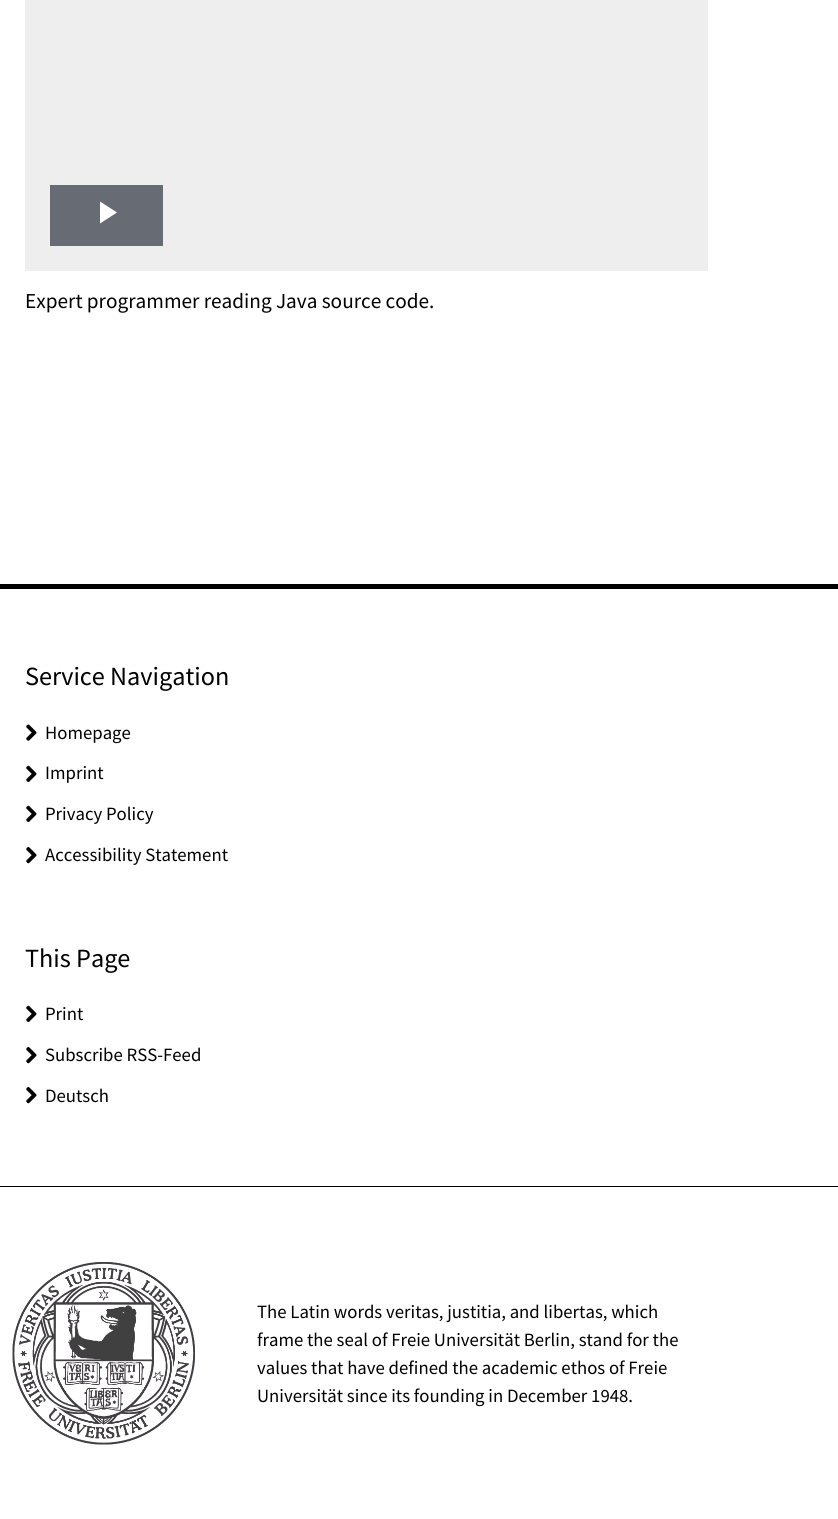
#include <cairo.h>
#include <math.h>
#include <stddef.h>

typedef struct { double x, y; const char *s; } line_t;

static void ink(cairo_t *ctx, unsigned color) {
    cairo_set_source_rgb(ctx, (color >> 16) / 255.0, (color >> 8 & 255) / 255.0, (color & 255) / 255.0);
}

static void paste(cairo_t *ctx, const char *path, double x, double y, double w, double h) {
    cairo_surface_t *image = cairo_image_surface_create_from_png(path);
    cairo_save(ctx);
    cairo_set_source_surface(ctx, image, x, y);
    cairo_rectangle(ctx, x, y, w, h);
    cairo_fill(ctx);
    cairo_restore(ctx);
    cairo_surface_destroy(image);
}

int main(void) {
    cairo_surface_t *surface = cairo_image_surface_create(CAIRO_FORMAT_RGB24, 838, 1519);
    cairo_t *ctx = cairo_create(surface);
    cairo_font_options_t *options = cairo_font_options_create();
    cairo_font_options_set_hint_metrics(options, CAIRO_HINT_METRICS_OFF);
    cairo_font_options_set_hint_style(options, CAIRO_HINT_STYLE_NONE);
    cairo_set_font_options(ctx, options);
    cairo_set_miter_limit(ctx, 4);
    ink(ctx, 0xFFFFFF);
    cairo_paint(ctx);
    ink(ctx, 0xEEEEEE);
    cairo_rectangle(ctx, 25, 0, 683, 271);
    cairo_fill(ctx);
    ink(ctx, 0x666B74);
    cairo_rectangle(ctx, 50, 185, 113, 61);
    cairo_fill(ctx);
    ink(ctx, 0xFFFFFF);
    cairo_new_path(ctx);
    cairo_move_to(ctx, 100, 201.5);
    cairo_line_to(ctx, 100, 223.5);
    cairo_line_to(ctx, 117, 212.5);
    cairo_close_path(ctx);
    cairo_fill(ctx);
    cairo_select_font_face(ctx, "Source Sans Pro", CAIRO_FONT_SLANT_NORMAL, CAIRO_FONT_WEIGHT_NORMAL);
    cairo_set_font_size(ctx, 21.25);
    ink(ctx, 0x000000);
    cairo_move_to(ctx, 25, 308);
    cairo_show_text(ctx, "Expert programmer reading Java source code.");
    cairo_rectangle(ctx, 0, 584, 838, 5);
    cairo_fill(ctx);
    cairo_rectangle(ctx, 0, 1186, 838, 1);
    cairo_fill(ctx);
    cairo_set_font_size(ctx, 26.25);
    cairo_move_to(ctx, 25, 685);
    cairo_show_text(ctx, "Service Navigation");
    paste(ctx, "media/1.png", 26, 724, 11, 17);
    cairo_set_font_size(ctx, 18.75);
    cairo_move_to(ctx, 45, 739);
    cairo_show_text(ctx, "Homepage");
    paste(ctx, "media/2.png", 26, 765, 11, 17);
    cairo_move_to(ctx, 45, 779);
    cairo_show_text(ctx, "Imprint");
    paste(ctx, "media/2.png", 26, 805, 11, 17);
    cairo_move_to(ctx, 45, 820);
    cairo_show_text(ctx, "Privacy Policy");
    paste(ctx, "media/3.png", 26, 847, 11, 17);
    cairo_move_to(ctx, 45, 861);
    cairo_show_text(ctx, "Accessibility Statement");
    cairo_set_font_size(ctx, 26.25);
    cairo_move_to(ctx, 25, 967);
    cairo_show_text(ctx, "This Page");
    paste(ctx, "media/2.png", 26, 1005, 11, 17);
    cairo_set_font_size(ctx, 18.75);
    cairo_move_to(ctx, 45, 1020);
    cairo_show_text(ctx, "Print");
    paste(ctx, "media/3.png", 26, 1047, 11, 17);
    cairo_move_to(ctx, 45, 1061);
    cairo_show_text(ctx, "Subscribe RSS-Feed");
    paste(ctx, "media/3.png", 26, 1087, 11, 17);
    cairo_move_to(ctx, 45, 1102);
    cairo_show_text(ctx, "Deutsch");
    paste(ctx, "media/4.png", 12, 1262, 183, 183);
    {
        static const line_t items[] = {
            {257, 1318, "The Latin words veritas, justitia, and libertas, which"},
            {257, 1346, "frame the seal of Freie Universität Berlin, stand for the"},
            {257, 1374, "values that have defined the academic ethos of Freie"},
            {257, 1402, "Universität since its founding in December 1948."},
        };
        for (size_t i = 0; i < sizeof items / sizeof *items; i++) {
            cairo_move_to(ctx, items[i].x, items[i].y);
            cairo_show_text(ctx, items[i].s);
        }
    }
    cairo_surface_write_to_png(surface, "image.png");
    cairo_font_options_destroy(options);
    cairo_destroy(ctx);
    cairo_surface_destroy(surface);
    return 0;
}
